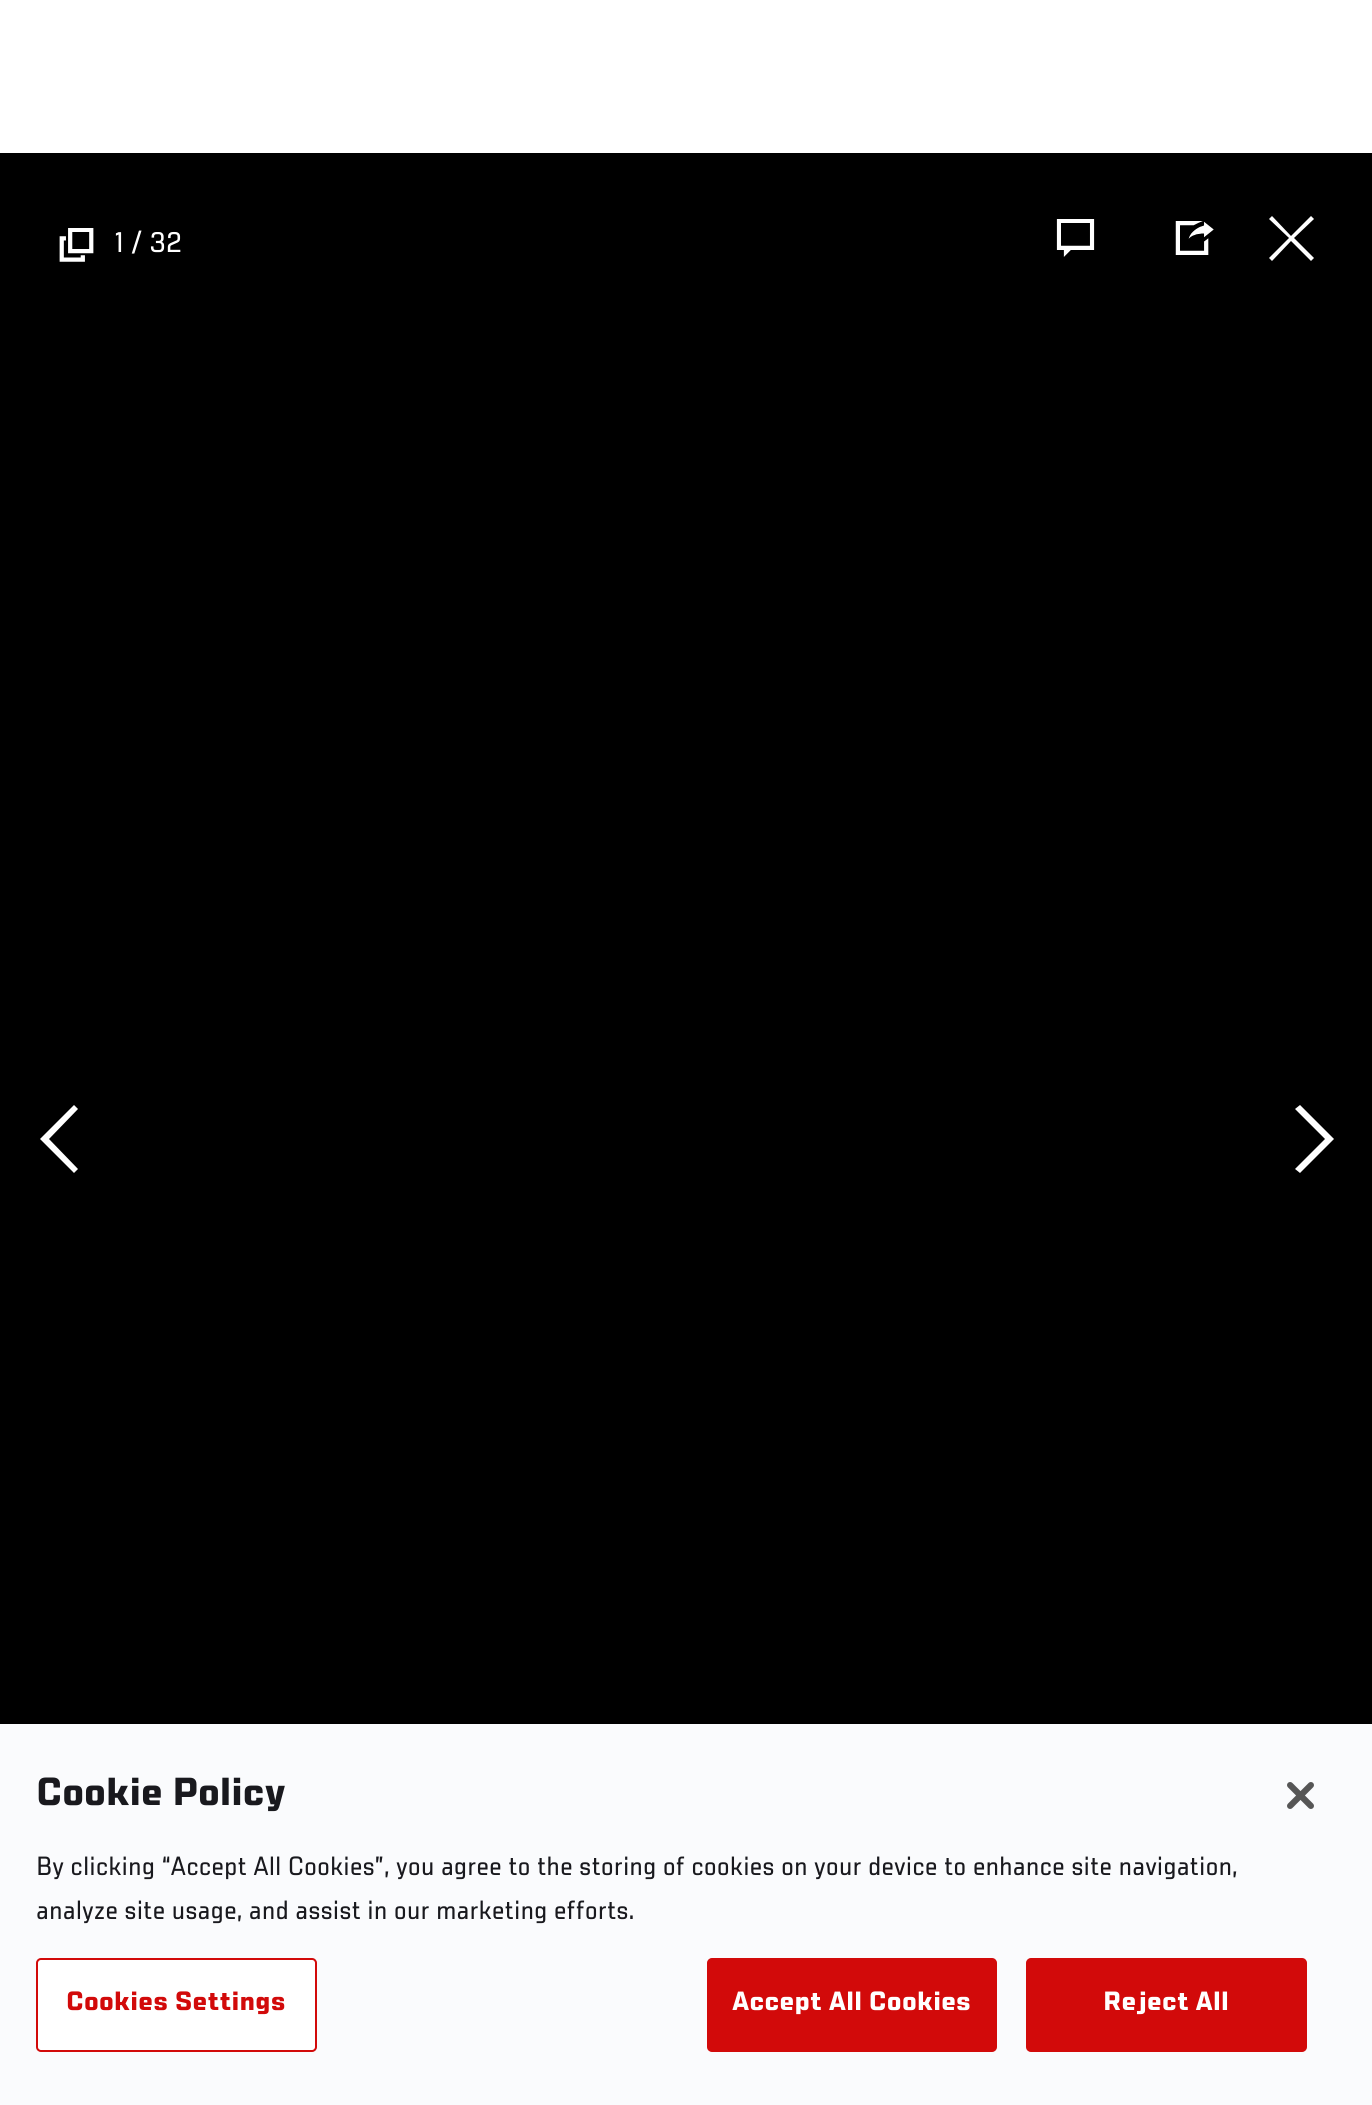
#include <cairo.h>
#include <math.h>
#include <stddef.h>


static void ink(cairo_t *ctx, unsigned color) {
    cairo_set_source_rgb(ctx, (color >> 16) / 255.0, (color >> 8 & 255) / 255.0, (color & 255) / 255.0);
}

static void write_spaced(cairo_t *ctx, double x, double y, const char *s, double letter, double word) {
    cairo_move_to(ctx, x, y);
    while (*s) {
        char ch[5] = {0};
        int n = 0;
        do ch[n++] = *s++; while ((*s & 0xC0) == 0x80);
        cairo_show_text(ctx, ch);
        cairo_rel_move_to(ctx, letter + word * (*ch == ' '), 0);
    }
}

static void round_path(cairo_t *ctx, double x, double y, double w, double h, double r) {
    cairo_new_sub_path(ctx);
    cairo_arc(ctx, x + w - r, y + h - r, r, 0, M_PI / 2);
    cairo_arc(ctx, x + r, y + h - r, r, M_PI / 2, M_PI);
    cairo_arc(ctx, x + r, y + r, r, M_PI, 1.5 * M_PI);
    cairo_arc(ctx, x + w - r, y + r, r, 1.5 * M_PI, 2 * M_PI);
    cairo_close_path(ctx);
}

static void paste(cairo_t *ctx, const char *path, double x, double y, double w, double h) {
    cairo_surface_t *image = cairo_image_surface_create_from_png(path);
    cairo_save(ctx);
    cairo_set_source_surface(ctx, image, x, y);
    cairo_rectangle(ctx, x, y, w, h);
    cairo_fill(ctx);
    cairo_restore(ctx);
    cairo_surface_destroy(image);
}

int main(void) {
    cairo_surface_t *surface = cairo_image_surface_create(CAIRO_FORMAT_RGB24, 1372, 2105);
    cairo_t *ctx = cairo_create(surface);
    cairo_font_options_t *options = cairo_font_options_create();
    cairo_font_options_set_hint_metrics(options, CAIRO_HINT_METRICS_OFF);
    cairo_font_options_set_hint_style(options, CAIRO_HINT_STYLE_NONE);
    cairo_set_font_options(ctx, options);
    cairo_set_miter_limit(ctx, 4);
    ink(ctx, 0xFFFFFF);
    cairo_paint(ctx);
    ink(ctx, 0x000000);
    cairo_rectangle(ctx, 0, 153, 1372, 1571);
    cairo_fill(ctx);
    ink(ctx, 0xFFFFFF);
    cairo_new_path(ctx);
    cairo_move_to(ctx, 78, 1169);
    cairo_line_to(ctx, 74, 1173);
    cairo_line_to(ctx, 40, 1139);
    cairo_line_to(ctx, 74, 1105);
    cairo_line_to(ctx, 78, 1109);
    cairo_line_to(ctx, 49, 1139);
    cairo_close_path(ctx);
    cairo_fill(ctx);
    cairo_new_path(ctx);
    cairo_move_to(ctx, 1325, 1139);
    cairo_line_to(ctx, 1295, 1109);
    cairo_line_to(ctx, 1300, 1105);
    cairo_line_to(ctx, 1334, 1139);
    cairo_line_to(ctx, 1300, 1173);
    cairo_line_to(ctx, 1295, 1169);
    cairo_close_path(ctx);
    cairo_fill(ctx);
    paste(ctx, "media/1.png", 59, 228, 35, 34);
    cairo_select_font_face(ctx, "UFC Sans", CAIRO_FONT_SLANT_NORMAL, CAIRO_FONT_WEIGHT_NORMAL);
    cairo_set_font_size(ctx, 31.5);
    cairo_move_to(ctx, 115, 252);
    cairo_show_text(ctx, "1 / 32");
    paste(ctx, "media/2.png", 1056, 219, 39, 38);
    paste(ctx, "media/3.png", 1175, 221, 39, 34);
    cairo_new_path(ctx);
    cairo_move_to(ctx, 1311, 216);
    cairo_line_to(ctx, 1314, 219);
    cairo_line_to(ctx, 1294, 238);
    cairo_line_to(ctx, 1314, 258);
    cairo_line_to(ctx, 1311, 261);
    cairo_line_to(ctx, 1291, 241);
    cairo_line_to(ctx, 1272, 261);
    cairo_line_to(ctx, 1269, 258);
    cairo_line_to(ctx, 1289, 238);
    cairo_line_to(ctx, 1269, 219);
    cairo_line_to(ctx, 1272, 216);
    cairo_line_to(ctx, 1291, 236);
    cairo_close_path(ctx);
    cairo_fill(ctx);
    ink(ctx, 0xFAFBFD);
    cairo_rectangle(ctx, 0, 1724, 1372, 381);
    cairo_fill(ctx);
    cairo_select_font_face(ctx, "UFC Sans", CAIRO_FONT_SLANT_NORMAL, CAIRO_FONT_WEIGHT_BOLD);
    cairo_set_font_size(ctx, 43.25);
    ink(ctx, 0x19191E);
    cairo_move_to(ctx, 36, 1805);
    cairo_show_text(ctx, "Cookie Policy");
    cairo_select_font_face(ctx, "UFC Sans", CAIRO_FONT_SLANT_NORMAL, CAIRO_FONT_WEIGHT_NORMAL);
    cairo_set_font_size(ctx, 29.25);
    cairo_move_to(ctx, 36, 1875);
    cairo_show_text(ctx, "By clicking “Accept All Cookies”, you agree to the storing of cookies on your device to enhance site navigation,");
    cairo_move_to(ctx, 36, 1919);
    cairo_show_text(ctx, "analyze site usage, and assist in our marketing efforts.");
    ink(ctx, 0xFFFFFF);
    round_path(ctx, 37, 1959, 279, 92, 4);
    cairo_fill_preserve(ctx);
    ink(ctx, 0xD20A0A);
    cairo_stroke(ctx);
    cairo_select_font_face(ctx, "UFC Sans", CAIRO_FONT_SLANT_NORMAL, CAIRO_FONT_WEIGHT_BOLD);
    write_spaced(ctx, 66, 2010, "Cookies Settings", 0.25, 0);
    round_path(ctx, 708, 1959, 288, 92, 4);
    cairo_fill_preserve(ctx);
    cairo_stroke(ctx);
    ink(ctx, 0xFFFFFF);
    write_spaced(ctx, 732, 2010, "Accept All Cookies", 0.25, 0);
    ink(ctx, 0xD20A0A);
    round_path(ctx, 1027, 1959, 279, 92, 4);
    cairo_fill_preserve(ctx);
    cairo_stroke(ctx);
    ink(ctx, 0xFFFFFF);
    write_spaced(ctx, 1103, 2010, "Reject All", 0.25, 0);
    paste(ctx, "media/4.png", 1287, 1782, 27, 27);
    cairo_surface_write_to_png(surface, "image.png");
    cairo_font_options_destroy(options);
    cairo_destroy(ctx);
    cairo_surface_destroy(surface);
    return 0;
}
